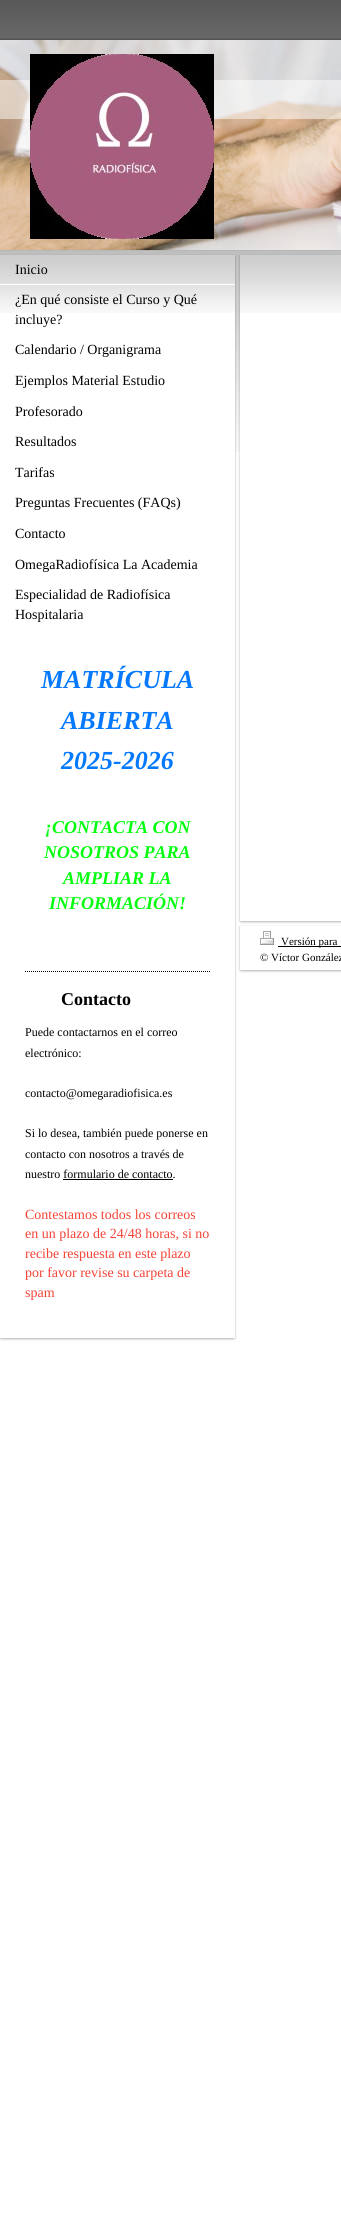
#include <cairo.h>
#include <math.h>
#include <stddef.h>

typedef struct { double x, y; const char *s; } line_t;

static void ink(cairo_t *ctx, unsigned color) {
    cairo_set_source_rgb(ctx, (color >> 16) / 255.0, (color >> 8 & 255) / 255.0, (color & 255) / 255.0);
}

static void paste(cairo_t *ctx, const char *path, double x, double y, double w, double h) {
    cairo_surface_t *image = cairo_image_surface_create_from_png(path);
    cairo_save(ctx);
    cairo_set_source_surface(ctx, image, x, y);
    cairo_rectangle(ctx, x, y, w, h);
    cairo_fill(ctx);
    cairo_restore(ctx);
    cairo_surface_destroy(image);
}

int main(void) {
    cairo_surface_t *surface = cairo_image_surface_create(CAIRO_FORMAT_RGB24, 341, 2235);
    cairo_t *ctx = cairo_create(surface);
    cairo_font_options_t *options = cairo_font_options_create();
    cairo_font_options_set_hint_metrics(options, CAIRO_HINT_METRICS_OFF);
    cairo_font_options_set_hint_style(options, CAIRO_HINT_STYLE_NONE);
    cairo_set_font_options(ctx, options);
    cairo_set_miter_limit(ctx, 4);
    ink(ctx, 0xFFFFFF);
    cairo_paint(ctx);
    paste(ctx, "media/1.png", 0, 0, 341, 452);
    paste(ctx, "media/2.png", 0, 38, 341, 213);
    paste(ctx, "media/3.png", 0, 40, 341, 210);
    cairo_set_source_rgba(ctx, 1, 1, 1, 0.5);
    cairo_rectangle(ctx, 0, 80, 341, 39);
    cairo_fill(ctx);
    paste(ctx, "media/4.png", 30, 54, 184, 185);
    ink(ctx, 0xB9B9B9);
    cairo_rectangle(ctx, 0, 254, 235, 1);
    cairo_fill(ctx);
    paste(ctx, "media/5.png", 0, 1338, 237, 3);
    paste(ctx, "media/6.png", 235, 255, 2, 1083);
    ink(ctx, 0xFFFFFF);
    cairo_rectangle(ctx, 0, 255, 235, 197);
    cairo_fill(ctx);
    paste(ctx, "media/7.png", 0, 255, 235, 58);
    cairo_rectangle(ctx, 0, 284, 235, 1);
    cairo_fill(ctx);
    cairo_select_font_face(ctx, "Liberation Serif", CAIRO_FONT_SLANT_NORMAL, CAIRO_FONT_WEIGHT_NORMAL);
    cairo_set_font_size(ctx, 14);
    ink(ctx, 0x000000);
    {
        static const line_t items[] = {
            {15, 274, "Inicio"},
            {15, 304, "¿En qué consiste el Curso y Qué"},
            {15, 324, "incluye?"},
            {15, 354, "Calendario / Organigrama"},
            {15, 385, "Ejemplos Material Estudio"},
            {15, 416, "Profesorado"},
            {15, 446, "Resultados"},
            {15, 477, "Tarifas"},
            {15, 507, "Preguntas Frecuentes (FAQs)"},
            {15, 538, "Contacto"},
            {15, 569, "OmegaRadiofísica La Academia"},
            {15, 599, "Especialidad de Radiofísica"},
            {15, 619, "Hospitalaria"},
        };
        for (size_t i = 0; i < sizeof items / sizeof *items; i++) {
            cairo_move_to(ctx, items[i].x, items[i].y);
            cairo_show_text(ctx, items[i].s);
        }
    }
    cairo_select_font_face(ctx, "Liberation Serif", CAIRO_FONT_SLANT_ITALIC, CAIRO_FONT_WEIGHT_BOLD);
    cairo_set_font_size(ctx, 26);
    ink(ctx, 0x0479FD);
    {
        static const line_t items[] = {
            {41, 688, "MATRÍCULA"},
            {61, 729, "ABIERTA"},
            {61, 769, "2025-2026"},
        };
        for (size_t i = 0; i < sizeof items / sizeof *items; i++) {
            cairo_move_to(ctx, items[i].x, items[i].y);
            cairo_show_text(ctx, items[i].s);
        }
    }
    cairo_set_font_size(ctx, 18);
    ink(ctx, 0x04FD0E);
    {
        static const line_t items[] = {
            {45, 833, "¡CONTACTA CON"},
            {44, 858, "NOSOTROS PARA"},
            {63, 884, "AMPLIAR LA"},
            {49, 909, "INFORMACIÓN!"},
        };
        for (size_t i = 0; i < sizeof items / sizeof *items; i++) {
            cairo_move_to(ctx, items[i].x, items[i].y);
            cairo_show_text(ctx, items[i].s);
        }
    }
    cairo_new_path(ctx);
    cairo_move_to(ctx, 25, 971.5);
    cairo_line_to(ctx, 210, 971.5);
    ink(ctx, 0x000000);
    cairo_set_line_width(ctx, 1);
    cairo_set_dash(ctx, (double[]){1, 1}, 2, 0);
    cairo_stroke(ctx);
    cairo_select_font_face(ctx, "Liberation Serif", CAIRO_FONT_SLANT_NORMAL, CAIRO_FONT_WEIGHT_BOLD);
    cairo_move_to(ctx, 61, 1005);
    cairo_show_text(ctx, "Contacto");
    cairo_select_font_face(ctx, "Liberation Serif", CAIRO_FONT_SLANT_NORMAL, CAIRO_FONT_WEIGHT_NORMAL);
    cairo_set_font_size(ctx, 12);
    {
        static const line_t items[] = {
            {25, 1036, "Puede contactarnos en el correo"},
            {25, 1057, "electrónico:"},
            {25, 1097, "contacto@omegaradiofisica.es"},
            {25, 1137, "Si lo desea, también puede ponerse en"},
            {25, 1158, "contacto con nosotros a través de"},
            {25, 1178, "nuestro formulario de contacto."},
        };
        for (size_t i = 0; i < sizeof items / sizeof *items; i++) {
            cairo_move_to(ctx, items[i].x, items[i].y);
            cairo_show_text(ctx, items[i].s);
        }
    }
    cairo_rectangle(ctx, 63, 1179, 110, 1);
    cairo_fill(ctx);
    cairo_set_font_size(ctx, 14);
    ink(ctx, 0xF44336);
    {
        static const line_t items[] = {
            {25, 1219, "Contestamos todos los correos"},
            {25, 1238, "en un plazo de 24/48 horas, si no"},
            {25, 1258, "recibe respuesta en este plazo"},
            {25, 1277, "por favor revise su carpeta de"},
            {25, 1297, "spam"},
        };
        for (size_t i = 0; i < sizeof items / sizeof *items; i++) {
            cairo_move_to(ctx, items[i].x, items[i].y);
            cairo_show_text(ctx, items[i].s);
        }
    }
    ink(ctx, 0xB9B9B9);
    cairo_rectangle(ctx, 240, 254, 101, 1);
    cairo_fill(ctx);
    paste(ctx, "media/8.png", 238, 921, 103, 3);
    paste(ctx, "media/9.png", 238, 255, 2, 666);
    ink(ctx, 0xFFFFFF);
    cairo_rectangle(ctx, 240, 255, 101, 197);
    cairo_fill(ctx);
    paste(ctx, "media/10.png", 240, 255, 101, 58);
    ink(ctx, 0xF7F7F7);
    cairo_rectangle(ctx, 240, 925, 101, 1);
    cairo_fill(ctx);
    paste(ctx, "media/8.png", 238, 970, 103, 3);
    paste(ctx, "media/11.png", 238, 926, 2, 44);
    paste(ctx, "media/12.png", 260, 931, 14, 14);
    ink(ctx, 0x000000);
    cairo_rectangle(ctx, 278, 946, 63, 1);
    cairo_fill(ctx);
    cairo_set_font_size(ctx, 11);
    cairo_move_to(ctx, 281, 945);
    cairo_show_text(ctx, "Versión para");
    cairo_move_to(ctx, 260, 961);
    cairo_show_text(ctx, "© Víctor González");
    cairo_surface_write_to_png(surface, "image.png");
    cairo_font_options_destroy(options);
    cairo_destroy(ctx);
    cairo_surface_destroy(surface);
    return 0;
}
